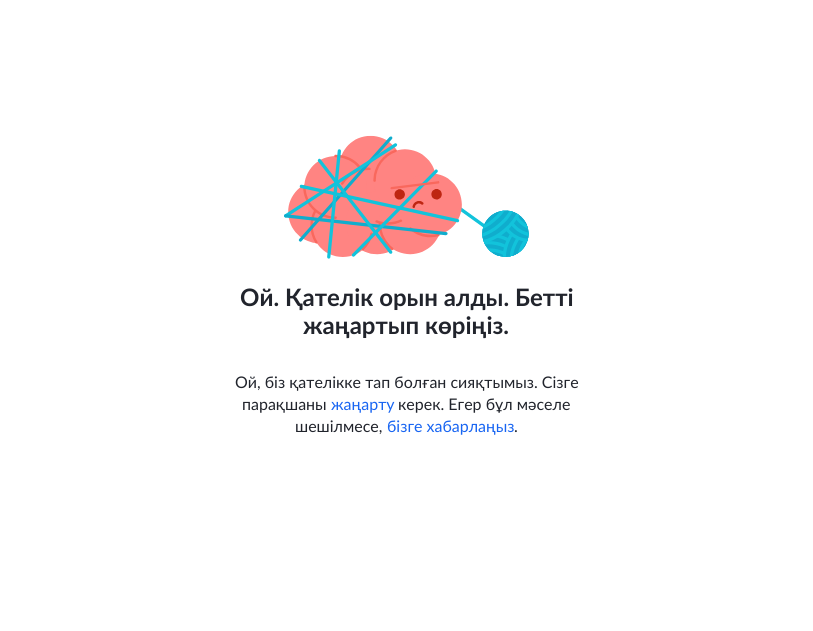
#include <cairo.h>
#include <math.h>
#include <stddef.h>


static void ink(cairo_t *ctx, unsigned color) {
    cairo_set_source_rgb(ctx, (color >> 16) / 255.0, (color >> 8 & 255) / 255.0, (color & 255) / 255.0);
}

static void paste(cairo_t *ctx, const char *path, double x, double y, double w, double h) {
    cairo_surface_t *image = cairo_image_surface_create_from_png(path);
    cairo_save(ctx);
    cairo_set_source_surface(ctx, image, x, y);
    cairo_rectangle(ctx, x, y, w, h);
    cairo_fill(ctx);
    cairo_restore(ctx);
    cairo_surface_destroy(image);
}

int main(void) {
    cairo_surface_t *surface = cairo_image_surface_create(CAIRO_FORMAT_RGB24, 813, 631);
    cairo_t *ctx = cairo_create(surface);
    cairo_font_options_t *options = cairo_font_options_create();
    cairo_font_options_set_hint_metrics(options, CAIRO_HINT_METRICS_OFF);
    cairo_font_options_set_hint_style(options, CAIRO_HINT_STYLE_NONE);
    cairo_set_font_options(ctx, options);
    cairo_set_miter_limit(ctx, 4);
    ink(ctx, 0xFFFFFF);
    cairo_paint(ctx);
    paste(ctx, "media/1.png", 284, 135, 245, 124);
    cairo_select_font_face(ctx, "Lato", CAIRO_FONT_SLANT_NORMAL, CAIRO_FONT_WEIGHT_BOLD);
    cairo_set_font_size(ctx, 24);
    ink(ctx, 0x21242C);
    cairo_move_to(ctx, 240, 306);
    cairo_show_text(ctx, "Ой. Қателік орын алды. Бетті");
    cairo_move_to(ctx, 303, 334);
    cairo_show_text(ctx, "жаңартып көріңіз.");
    cairo_select_font_face(ctx, "Lato", CAIRO_FONT_SLANT_NORMAL, CAIRO_FONT_WEIGHT_NORMAL);
    cairo_set_font_size(ctx, 16);
    cairo_move_to(ctx, 235, 388);
    cairo_show_text(ctx, "Ой, біз қателікке тап болған сияқтымыз. Сізге");
    cairo_move_to(ctx, 242, 410);
    cairo_show_text(ctx, "парақшаны");
    ink(ctx, 0x1865F2);
    cairo_move_to(ctx, 331, 410);
    cairo_show_text(ctx, "жаңарту");
    ink(ctx, 0x21242C);
    cairo_move_to(ctx, 398, 410);
    cairo_show_text(ctx, "керек. Егер бұл мәселе");
    cairo_move_to(ctx, 295, 432);
    cairo_show_text(ctx, "шешілмесе,");
    ink(ctx, 0x1865F2);
    cairo_move_to(ctx, 387, 432);
    cairo_show_text(ctx, "бізге хабарлаңыз");
    ink(ctx, 0x21242C);
    cairo_move_to(ctx, 514, 432);
    cairo_show_text(ctx, ".");
    cairo_surface_write_to_png(surface, "image.png");
    cairo_font_options_destroy(options);
    cairo_destroy(ctx);
    cairo_surface_destroy(surface);
    return 0;
}
